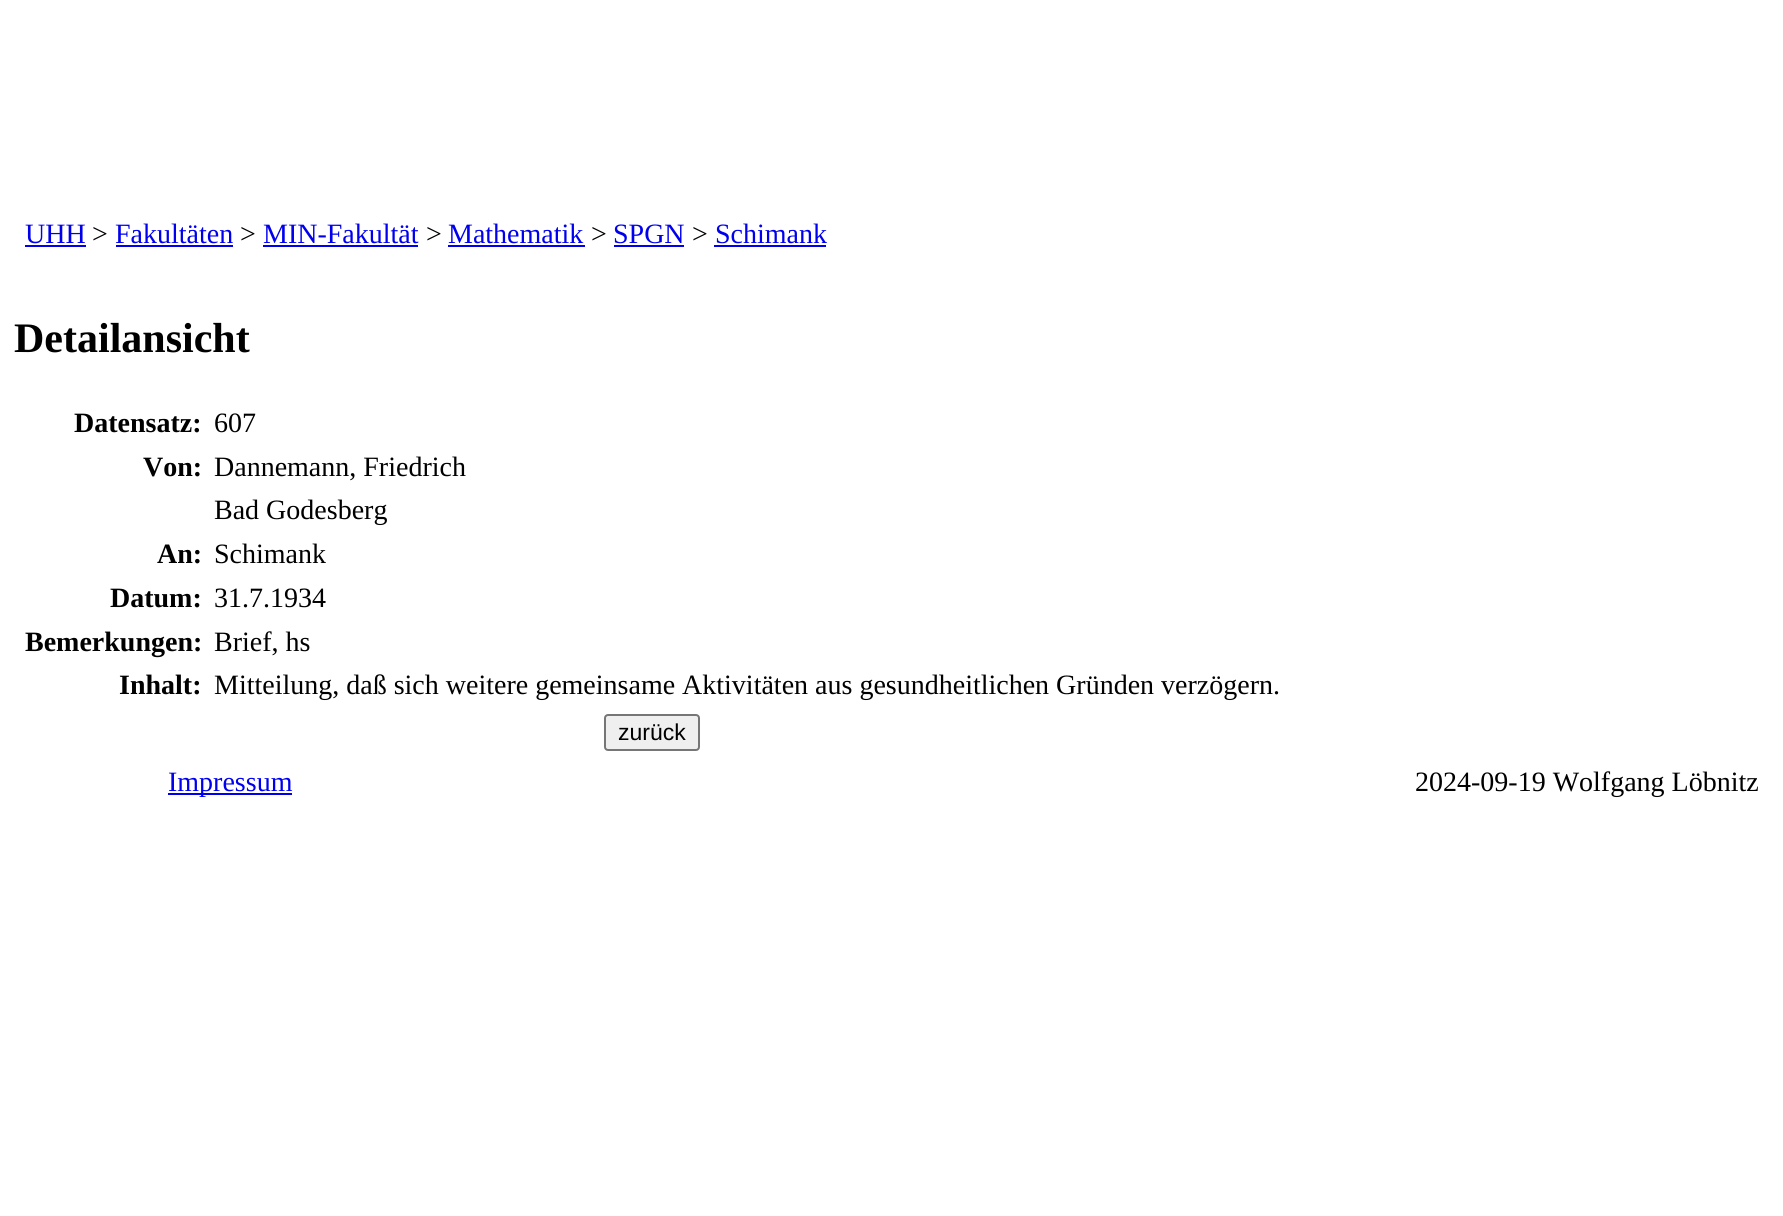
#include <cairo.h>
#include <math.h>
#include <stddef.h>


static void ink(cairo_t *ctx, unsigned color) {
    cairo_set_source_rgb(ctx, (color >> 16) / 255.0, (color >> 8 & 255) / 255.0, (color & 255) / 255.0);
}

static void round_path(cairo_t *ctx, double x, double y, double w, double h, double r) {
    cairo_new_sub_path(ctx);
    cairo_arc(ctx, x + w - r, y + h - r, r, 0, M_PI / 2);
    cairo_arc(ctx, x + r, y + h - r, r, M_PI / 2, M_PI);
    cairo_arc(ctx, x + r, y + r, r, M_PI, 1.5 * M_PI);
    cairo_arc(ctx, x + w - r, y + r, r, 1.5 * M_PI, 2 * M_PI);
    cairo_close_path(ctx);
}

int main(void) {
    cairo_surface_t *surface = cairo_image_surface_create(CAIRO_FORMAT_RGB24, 1783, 1216);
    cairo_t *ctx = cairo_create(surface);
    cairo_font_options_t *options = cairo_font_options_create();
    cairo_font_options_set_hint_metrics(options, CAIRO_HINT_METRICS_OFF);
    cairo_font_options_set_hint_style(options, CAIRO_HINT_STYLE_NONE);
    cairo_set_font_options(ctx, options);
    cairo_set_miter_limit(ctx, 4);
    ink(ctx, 0xFFFFFF);
    cairo_paint(ctx);
    cairo_select_font_face(ctx, "Liberation Serif", CAIRO_FONT_SLANT_NORMAL, CAIRO_FONT_WEIGHT_NORMAL);
    cairo_set_font_size(ctx, 28);
    ink(ctx, 0x0000EE);
    cairo_move_to(ctx, 25, 243);
    cairo_show_text(ctx, "UHH");
    cairo_rectangle(ctx, 25, 245, 61, 2);
    cairo_fill(ctx);
    ink(ctx, 0x000000);
    cairo_move_to(ctx, 92, 243);
    cairo_show_text(ctx, ">");
    ink(ctx, 0x0000EE);
    cairo_move_to(ctx, 115, 243);
    cairo_show_text(ctx, "Fakultäten");
    cairo_rectangle(ctx, 116, 245, 117, 2);
    cairo_fill(ctx);
    ink(ctx, 0x000000);
    cairo_move_to(ctx, 240, 243);
    cairo_show_text(ctx, ">");
    ink(ctx, 0x0000EE);
    cairo_move_to(ctx, 263, 243);
    cairo_show_text(ctx, "MIN-Fakultät");
    cairo_rectangle(ctx, 263, 245, 155, 2);
    cairo_fill(ctx);
    ink(ctx, 0x000000);
    cairo_move_to(ctx, 426, 243);
    cairo_show_text(ctx, ">");
    ink(ctx, 0x0000EE);
    cairo_move_to(ctx, 448, 243);
    cairo_show_text(ctx, "Mathematik");
    cairo_rectangle(ctx, 448, 245, 137, 2);
    cairo_fill(ctx);
    ink(ctx, 0x000000);
    cairo_move_to(ctx, 591, 243);
    cairo_show_text(ctx, ">");
    ink(ctx, 0x0000EE);
    cairo_move_to(ctx, 613, 243);
    cairo_show_text(ctx, "SPGN");
    cairo_rectangle(ctx, 614, 245, 70, 2);
    cairo_fill(ctx);
    ink(ctx, 0x000000);
    cairo_move_to(ctx, 692, 243);
    cairo_show_text(ctx, ">");
    ink(ctx, 0x0000EE);
    cairo_move_to(ctx, 715, 243);
    cairo_show_text(ctx, "Schimank");
    cairo_rectangle(ctx, 714, 245, 112, 2);
    cairo_fill(ctx);
    cairo_select_font_face(ctx, "Liberation Serif", CAIRO_FONT_SLANT_NORMAL, CAIRO_FONT_WEIGHT_BOLD);
    cairo_set_font_size(ctx, 42);
    ink(ctx, 0x000000);
    cairo_move_to(ctx, 14, 352);
    cairo_show_text(ctx, "Detailansicht");
    cairo_set_font_size(ctx, 28);
    cairo_move_to(ctx, 74, 432);
    cairo_show_text(ctx, "Datensatz:");
    cairo_select_font_face(ctx, "Liberation Serif", CAIRO_FONT_SLANT_NORMAL, CAIRO_FONT_WEIGHT_NORMAL);
    cairo_move_to(ctx, 214, 432);
    cairo_show_text(ctx, "607");
    cairo_select_font_face(ctx, "Liberation Serif", CAIRO_FONT_SLANT_NORMAL, CAIRO_FONT_WEIGHT_BOLD);
    cairo_move_to(ctx, 143, 476);
    cairo_show_text(ctx, "Von:");
    cairo_select_font_face(ctx, "Liberation Serif", CAIRO_FONT_SLANT_NORMAL, CAIRO_FONT_WEIGHT_NORMAL);
    cairo_move_to(ctx, 214, 476);
    cairo_show_text(ctx, "Dannemann, Friedrich");
    cairo_move_to(ctx, 214, 519);
    cairo_show_text(ctx, "Bad Godesberg");
    cairo_select_font_face(ctx, "Liberation Serif", CAIRO_FONT_SLANT_NORMAL, CAIRO_FONT_WEIGHT_BOLD);
    cairo_move_to(ctx, 157, 563);
    cairo_show_text(ctx, "An:");
    cairo_select_font_face(ctx, "Liberation Serif", CAIRO_FONT_SLANT_NORMAL, CAIRO_FONT_WEIGHT_NORMAL);
    cairo_move_to(ctx, 214, 563);
    cairo_show_text(ctx, "Schimank");
    cairo_select_font_face(ctx, "Liberation Serif", CAIRO_FONT_SLANT_NORMAL, CAIRO_FONT_WEIGHT_BOLD);
    cairo_move_to(ctx, 110, 607);
    cairo_show_text(ctx, "Datum:");
    cairo_select_font_face(ctx, "Liberation Serif", CAIRO_FONT_SLANT_NORMAL, CAIRO_FONT_WEIGHT_NORMAL);
    cairo_move_to(ctx, 214, 607);
    cairo_show_text(ctx, "31.7.1934");
    cairo_select_font_face(ctx, "Liberation Serif", CAIRO_FONT_SLANT_NORMAL, CAIRO_FONT_WEIGHT_BOLD);
    cairo_move_to(ctx, 25, 651);
    cairo_show_text(ctx, "Bemerkungen:");
    cairo_select_font_face(ctx, "Liberation Serif", CAIRO_FONT_SLANT_NORMAL, CAIRO_FONT_WEIGHT_NORMAL);
    cairo_move_to(ctx, 214, 651);
    cairo_show_text(ctx, "Brief, hs");
    cairo_select_font_face(ctx, "Liberation Serif", CAIRO_FONT_SLANT_NORMAL, CAIRO_FONT_WEIGHT_BOLD);
    cairo_move_to(ctx, 119, 694);
    cairo_show_text(ctx, "Inhalt:");
    cairo_select_font_face(ctx, "Liberation Serif", CAIRO_FONT_SLANT_NORMAL, CAIRO_FONT_WEIGHT_NORMAL);
    cairo_move_to(ctx, 214, 694);
    cairo_show_text(ctx, "Mitteilung, daß sich weitere gemeinsame Aktivitäten aus gesundheitlichen Gründen verzögern.");
    ink(ctx, 0xEFEFEF);
    round_path(ctx, 605, 715, 94, 35, 3);
    cairo_fill_preserve(ctx);
    ink(ctx, 0x767676);
    cairo_stroke(ctx);
    cairo_select_font_face(ctx, "Liberation Sans", CAIRO_FONT_SLANT_NORMAL, CAIRO_FONT_WEIGHT_NORMAL);
    cairo_set_font_size(ctx, 23);
    ink(ctx, 0x000000);
    cairo_move_to(ctx, 618, 740);
    cairo_show_text(ctx, "zurück");
    ink(ctx, 0x0000EE);
    cairo_rectangle(ctx, 168, 793, 124, 2);
    cairo_fill(ctx);
    cairo_select_font_face(ctx, "Liberation Serif", CAIRO_FONT_SLANT_NORMAL, CAIRO_FONT_WEIGHT_NORMAL);
    cairo_set_font_size(ctx, 28);
    cairo_move_to(ctx, 168, 791);
    cairo_show_text(ctx, "Impressum");
    ink(ctx, 0x000000);
    cairo_move_to(ctx, 1415, 791);
    cairo_show_text(ctx, "2024-09-19 Wolfgang Löbnitz");
    cairo_surface_write_to_png(surface, "image.png");
    cairo_font_options_destroy(options);
    cairo_destroy(ctx);
    cairo_surface_destroy(surface);
    return 0;
}
